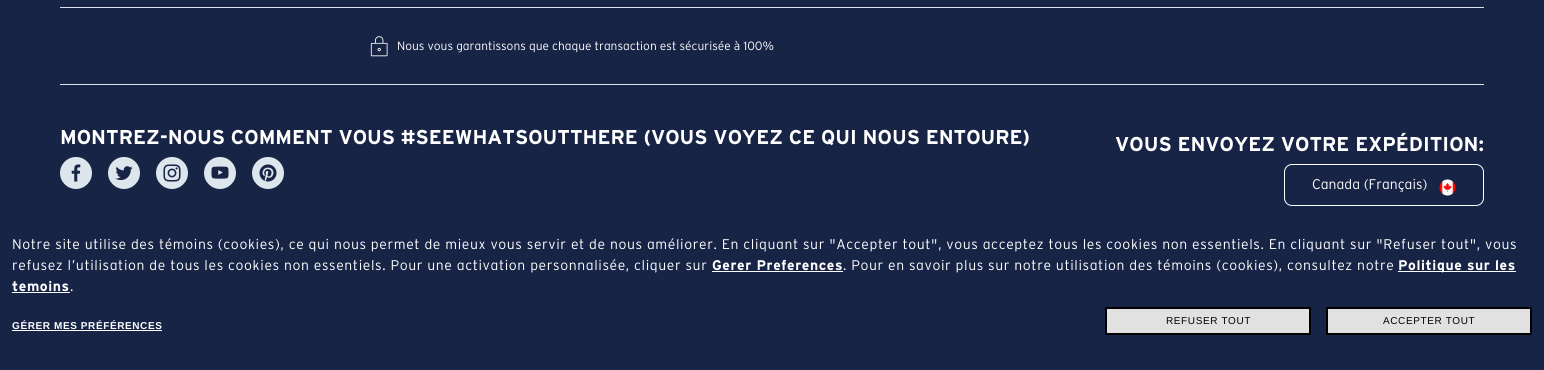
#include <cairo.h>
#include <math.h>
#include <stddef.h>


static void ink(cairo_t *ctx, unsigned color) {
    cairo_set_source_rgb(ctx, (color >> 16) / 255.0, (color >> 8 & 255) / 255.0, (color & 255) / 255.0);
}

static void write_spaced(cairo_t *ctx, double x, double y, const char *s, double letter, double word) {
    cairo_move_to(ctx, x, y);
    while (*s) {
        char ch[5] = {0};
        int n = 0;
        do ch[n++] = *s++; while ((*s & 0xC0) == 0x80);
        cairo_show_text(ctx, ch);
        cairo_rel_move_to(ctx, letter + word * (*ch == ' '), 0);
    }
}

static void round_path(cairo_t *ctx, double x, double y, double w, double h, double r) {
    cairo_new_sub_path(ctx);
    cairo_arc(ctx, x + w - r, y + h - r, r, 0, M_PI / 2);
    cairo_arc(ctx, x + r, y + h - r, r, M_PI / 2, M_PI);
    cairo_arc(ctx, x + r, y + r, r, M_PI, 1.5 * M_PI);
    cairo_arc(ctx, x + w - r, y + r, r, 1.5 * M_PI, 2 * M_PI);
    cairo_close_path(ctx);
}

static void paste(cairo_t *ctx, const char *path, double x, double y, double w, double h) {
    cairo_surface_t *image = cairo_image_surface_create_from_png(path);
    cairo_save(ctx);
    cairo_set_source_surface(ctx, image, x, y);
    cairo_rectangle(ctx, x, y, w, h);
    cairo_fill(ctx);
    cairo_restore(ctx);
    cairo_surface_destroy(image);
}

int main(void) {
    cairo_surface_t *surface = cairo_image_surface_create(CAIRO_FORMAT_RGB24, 1544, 370);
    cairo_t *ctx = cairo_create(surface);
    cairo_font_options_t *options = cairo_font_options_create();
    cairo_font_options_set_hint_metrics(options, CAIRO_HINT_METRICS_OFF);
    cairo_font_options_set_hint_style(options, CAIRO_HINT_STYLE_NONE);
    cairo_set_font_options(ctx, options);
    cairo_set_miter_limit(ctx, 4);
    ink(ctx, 0x182446);
    cairo_paint(ctx);
    ink(ctx, 0xDEE2E6);
    cairo_rectangle(ctx, 60, 7, 1424, 1);
    cairo_fill(ctx);
    paste(ctx, "media/1.png", 370, 36, 18, 21);
    cairo_select_font_face(ctx, "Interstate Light", CAIRO_FONT_SLANT_NORMAL, CAIRO_FONT_WEIGHT_NORMAL);
    cairo_set_font_size(ctx, 12);
    ink(ctx, 0xFFFFFF);
    cairo_move_to(ctx, 397, 50);
    cairo_show_text(ctx, "Nous vous garantissons que chaque transaction est sécurisée à 100%");
    ink(ctx, 0xDEE2E6);
    cairo_rectangle(ctx, 60, 84, 1424, 1);
    cairo_fill(ctx);
    cairo_select_font_face(ctx, "Interstate", CAIRO_FONT_SLANT_NORMAL, CAIRO_FONT_WEIGHT_BOLD);
    cairo_set_font_size(ctx, 20);
    ink(ctx, 0xFFFFFF);
    cairo_move_to(ctx, 60, 144);
    cairo_show_text(ctx, "MONTREZ-NOUS COMMENT VOUS #SEEWHATSOUTTHERE (VOUS VOYEZ CE QUI NOUS ENTOURE)");
    ink(ctx, 0xDDE5ED);
    cairo_new_path(ctx);
    cairo_arc(ctx, 76, 173, 16, 0, 2 * M_PI);
    cairo_fill(ctx);
    paste(ctx, "media/2.png", 71, 164, 10, 18);
    cairo_arc(ctx, 124, 173, 16, 0, 2 * M_PI);
    cairo_fill(ctx);
    paste(ctx, "media/3.png", 115, 166, 18, 15);
    cairo_arc(ctx, 172, 173, 16, 0, 2 * M_PI);
    cairo_fill(ctx);
    paste(ctx, "media/4.png", 163, 164, 18, 18);
    cairo_arc(ctx, 220, 173, 16, 0, 2 * M_PI);
    cairo_fill(ctx);
    paste(ctx, "media/5.png", 211, 166, 18, 13);
    cairo_arc(ctx, 268, 173, 16, 0, 2 * M_PI);
    cairo_fill(ctx);
    paste(ctx, "media/6.png", 259, 164, 18, 18);
    ink(ctx, 0xFFFFFF);
    cairo_move_to(ctx, 1115, 151);
    cairo_show_text(ctx, "VOUS ENVOYEZ VOTRE EXPÉDITION:");
    round_path(ctx, 1284.5, 164.5, 199, 41, 7.5);
    cairo_set_line_width(ctx, 1);
    cairo_stroke(ctx);
    cairo_select_font_face(ctx, "Interstate Light", CAIRO_FONT_SLANT_NORMAL, CAIRO_FONT_WEIGHT_NORMAL);
    cairo_set_font_size(ctx, 14);
    cairo_move_to(ctx, 1312, 189);
    cairo_show_text(ctx, "Canada (Français)");
    paste(ctx, "media/7.png", 1439, 179, 17, 17);
    write_spaced(ctx, 12, 249, "Notre site utilise des témoins (cookies), ce qui nous permet de mieux vous servir et de nous améliorer. En cliquant sur \"Accepter tout\", vous acceptez tous les cookies non essentiels. En cliquant sur \"Refuser tout\", vous", 0.6, 0);
    write_spaced(ctx, 12, 270, "refusez l’utilisation de tous les cookies non essentiels. Pour une activation personnalisée, cliquer sur", 0.6, 0);
    cairo_select_font_face(ctx, "Interstate", CAIRO_FONT_SLANT_NORMAL, CAIRO_FONT_WEIGHT_BOLD);
    write_spaced(ctx, 712, 270, "Gerer Preferences", 0.6, 0);
    cairo_select_font_face(ctx, "Interstate Light", CAIRO_FONT_SLANT_NORMAL, CAIRO_FONT_WEIGHT_NORMAL);
    write_spaced(ctx, 843, 270, ". Pour en savoir plus sur notre utilisation des témoins (cookies), consultez notre", 0.6, 0);
    cairo_rectangle(ctx, 712, 271, 131, 1);
    cairo_fill(ctx);
    cairo_rectangle(ctx, 1398, 271, 118, 1);
    cairo_fill(ctx);
    cairo_select_font_face(ctx, "Interstate", CAIRO_FONT_SLANT_NORMAL, CAIRO_FONT_WEIGHT_BOLD);
    write_spaced(ctx, 1398, 270, "Politique sur les", 0.6, 0);
    write_spaced(ctx, 12, 291, "temoins", 0.6, 0);
    cairo_select_font_face(ctx, "Interstate Light", CAIRO_FONT_SLANT_NORMAL, CAIRO_FONT_WEIGHT_NORMAL);
    write_spaced(ctx, 70, 291, ".", 0.6, 0);
    cairo_rectangle(ctx, 12, 292, 58, 1);
    cairo_fill(ctx);
    cairo_select_font_face(ctx, "Liberation Sans", CAIRO_FONT_SLANT_NORMAL, CAIRO_FONT_WEIGHT_BOLD);
    cairo_set_font_size(ctx, 10);
    write_spaced(ctx, 12, 329, "GÉRER MES PRÉFÉRENCES", 0.6, 0);
    cairo_rectangle(ctx, 12, 330, 150, 1);
    cairo_fill(ctx);
    ink(ctx, 0xE1E1E1);
    cairo_rectangle(ctx, 1106, 308, 204, 26);
    cairo_fill_preserve(ctx);
    ink(ctx, 0x000000);
    cairo_set_line_width(ctx, 2);
    cairo_stroke(ctx);
    cairo_select_font_face(ctx, "Liberation Sans", CAIRO_FONT_SLANT_NORMAL, CAIRO_FONT_WEIGHT_NORMAL);
    write_spaced(ctx, 1166, 324, "REFUSER TOUT", 0.6, 0);
    ink(ctx, 0xE1E1E1);
    cairo_rectangle(ctx, 1327, 308, 204, 26);
    cairo_fill_preserve(ctx);
    ink(ctx, 0x000000);
    cairo_stroke(ctx);
    write_spaced(ctx, 1383, 324, "ACCEPTER TOUT", 0.6, 0);
    cairo_surface_write_to_png(surface, "image.png");
    cairo_font_options_destroy(options);
    cairo_destroy(ctx);
    cairo_surface_destroy(surface);
    return 0;
}
